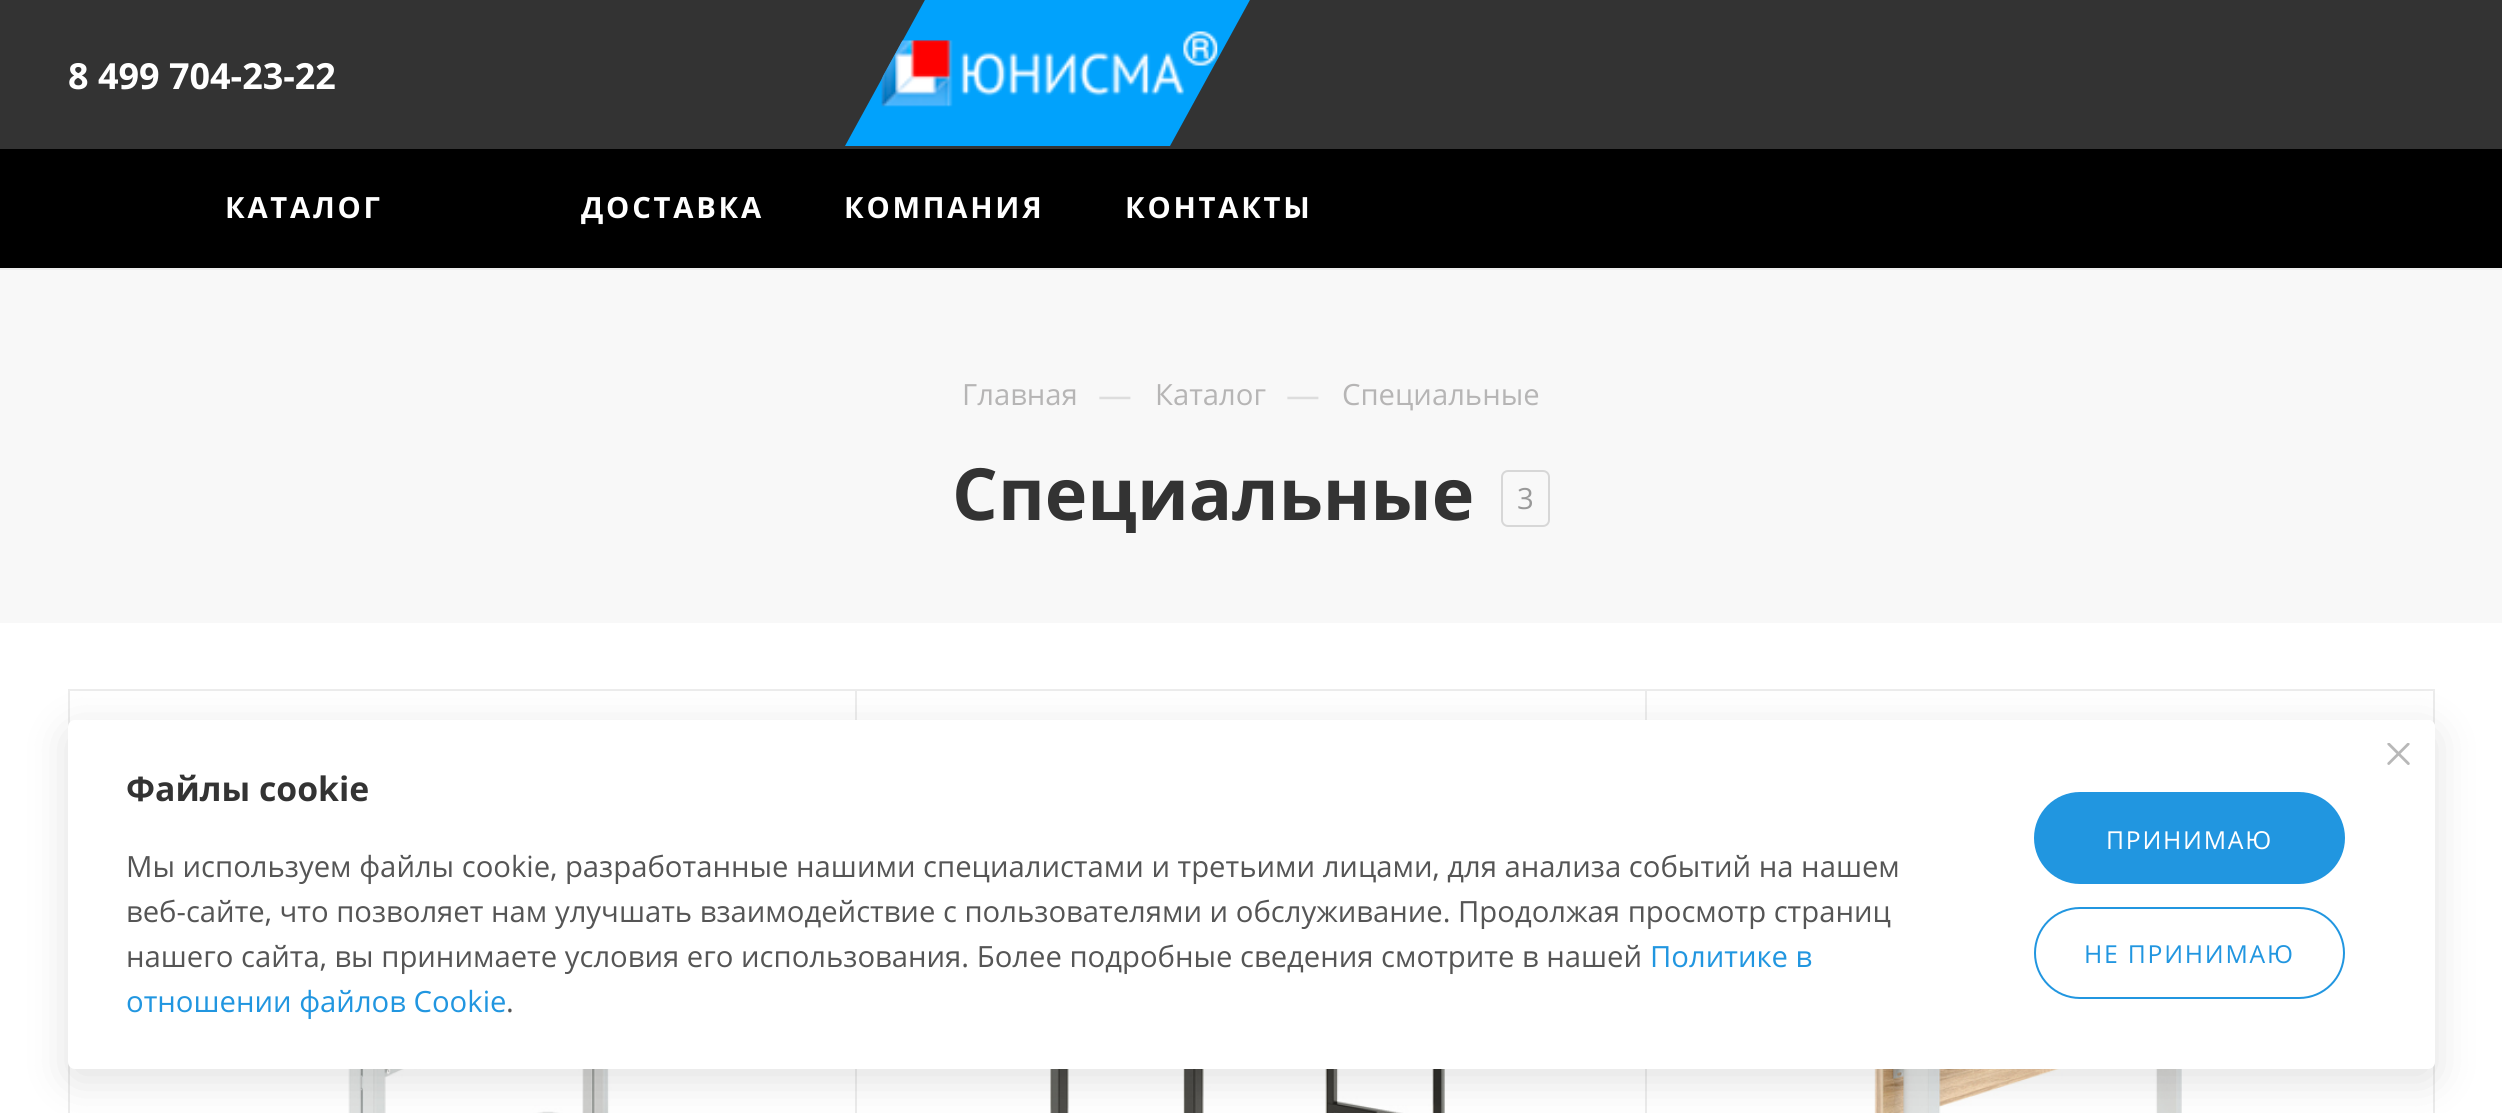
#include <cairo.h>
#include <math.h>
#include <stddef.h>

typedef struct { double x, y; const char *s; } line_t;

static void ink(cairo_t *ctx, unsigned color) {
    cairo_set_source_rgb(ctx, (color >> 16) / 255.0, (color >> 8 & 255) / 255.0, (color & 255) / 255.0);
}

static void write_spaced(cairo_t *ctx, double x, double y, const char *s, double letter, double word) {
    cairo_move_to(ctx, x, y);
    while (*s) {
        char ch[5] = {0};
        int n = 0;
        do ch[n++] = *s++; while ((*s & 0xC0) == 0x80);
        cairo_show_text(ctx, ch);
        cairo_rel_move_to(ctx, letter + word * (*ch == ' '), 0);
    }
}

static void round_path(cairo_t *ctx, double x, double y, double w, double h, double r) {
    cairo_new_sub_path(ctx);
    cairo_arc(ctx, x + w - r, y + h - r, r, 0, M_PI / 2);
    cairo_arc(ctx, x + r, y + h - r, r, M_PI / 2, M_PI);
    cairo_arc(ctx, x + r, y + r, r, M_PI, 1.5 * M_PI);
    cairo_arc(ctx, x + w - r, y + r, r, 1.5 * M_PI, 2 * M_PI);
    cairo_close_path(ctx);
}

static void blur_box(cairo_t *ctx, double x, double y, double w, double h, double r, double blur, double alpha) {
    cairo_push_group_with_content(ctx, CAIRO_CONTENT_ALPHA);
    cairo_set_operator(ctx, CAIRO_OPERATOR_SOURCE);
    for (int i = 15; i >= -15 && fmin(w, h) + blur * i / 3 > 0; i -= 2) {
        double e = blur * i / 6;
        cairo_set_source_rgba(ctx, 0, 0, 0, alpha * erfc((i - 1) / 8.5) / 2);
        round_path(ctx, x - e, y - e, w + 2 * e, h + 2 * e, fmax(0, fmin(r + e + blur * .6, fmin(w, h) / 2 + e)));
        cairo_fill(ctx);
    }
    cairo_pattern_t *soft = cairo_pop_group(ctx);
    cairo_mask(ctx, soft);
    cairo_pattern_destroy(soft);
}

static void paste(cairo_t *ctx, const char *path, double x, double y, double w, double h) {
    cairo_surface_t *image = cairo_image_surface_create_from_png(path);
    cairo_save(ctx);
    cairo_set_source_surface(ctx, image, x, y);
    cairo_rectangle(ctx, x, y, w, h);
    cairo_fill(ctx);
    cairo_restore(ctx);
    cairo_surface_destroy(image);
}

int main(void) {
    cairo_surface_t *surface = cairo_image_surface_create(CAIRO_FORMAT_RGB24, 2502, 1113);
    cairo_t *ctx = cairo_create(surface);
    cairo_font_options_t *options = cairo_font_options_create();
    cairo_font_options_set_hint_metrics(options, CAIRO_HINT_METRICS_OFF);
    cairo_font_options_set_hint_style(options, CAIRO_HINT_STYLE_NONE);
    cairo_set_font_options(ctx, options);
    cairo_set_miter_limit(ctx, 4);
    ink(ctx, 0xFFFFFF);
    cairo_paint(ctx);
    ink(ctx, 0x333333);
    cairo_rectangle(ctx, 0, 0, 2502, 149);
    cairo_fill(ctx);
    cairo_select_font_face(ctx, "Open Sans", CAIRO_FONT_SLANT_NORMAL, CAIRO_FONT_WEIGHT_BOLD);
    cairo_set_font_size(ctx, 36);
    ink(ctx, 0xFFFFFF);
    cairo_move_to(ctx, 68, 89);
    cairo_show_text(ctx, "8 499 704-23-22");
    ink(ctx, 0x01A2FC);
    cairo_new_path(ctx);
    cairo_move_to(ctx, 845, 146);
    cairo_line_to(ctx, 926, -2);
    cairo_line_to(ctx, 1251, -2);
    cairo_line_to(ctx, 1170, 146);
    cairo_close_path(ctx);
    cairo_fill(ctx);
    paste(ctx, "media/1.png", 881, 31, 337, 76);
    ink(ctx, 0x000000);
    cairo_rectangle(ctx, 0, 149, 2502, 119);
    cairo_fill(ctx);
    ink(ctx, 0xECECEC);
    cairo_rectangle(ctx, 0, 268, 2502, 2);
    cairo_fill(ctx);
    cairo_set_font_size(ctx, 29.25);
    ink(ctx, 0xFFFFFF);
    {
        static const line_t items[] = {
            {225, 218, "КАТАЛОГ"},
            {581, 218, "ДОСТАВКА"},
            {844, 218, "КОМПАНИЯ"},
            {1125, 218, "КОНТАКТЫ"},
        };
        for (size_t i = 0; i < sizeof items / sizeof *items; i++) {
            write_spaced(ctx, items[i].x, items[i].y, items[i].s, 2.75, 0);
        }
    }
    ink(ctx, 0xF8F8F8);
    cairo_rectangle(ctx, 0, 270, 2502, 353);
    cairo_fill(ctx);
    cairo_select_font_face(ctx, "Open Sans", CAIRO_FONT_SLANT_NORMAL, CAIRO_FONT_WEIGHT_NORMAL);
    ink(ctx, 0xB6B5B5);
    cairo_move_to(ctx, 962, 405);
    cairo_show_text(ctx, "Главная");
    cairo_set_font_size(ctx, 33.75);
    ink(ctx, 0xDDDDDD);
    cairo_move_to(ctx, 1098, 407);
    cairo_show_text(ctx, "—");
    cairo_set_font_size(ctx, 29.25);
    ink(ctx, 0xB6B5B5);
    cairo_move_to(ctx, 1155, 405);
    cairo_show_text(ctx, "Каталог");
    cairo_set_font_size(ctx, 33.75);
    ink(ctx, 0xDDDDDD);
    cairo_move_to(ctx, 1286, 407);
    cairo_show_text(ctx, "—");
    cairo_set_font_size(ctx, 29.25);
    ink(ctx, 0xB6B5B5);
    cairo_move_to(ctx, 1342, 405);
    cairo_show_text(ctx, "Специальные");
    cairo_save(ctx);
    cairo_rectangle(ctx, 293, 452, 1917, 81);
    cairo_clip(ctx);
    cairo_select_font_face(ctx, "Open Sans", CAIRO_FONT_SLANT_NORMAL, CAIRO_FONT_WEIGHT_BOLD);
    cairo_set_font_size(ctx, 72);
    ink(ctx, 0x333333);
    cairo_move_to(ctx, 952, 520);
    cairo_show_text(ctx, "Специальные");
    cairo_restore(ctx);
    round_path(ctx, 1502, 471, 47, 55, 6);
    ink(ctx, 0xD7D7D7);
    cairo_stroke(ctx);
    ink(ctx, 0x999999);
    cairo_move_to(ctx, 1517, 509);
    cairo_show_text(ctx, "3");
    cairo_rectangle(ctx, 69, 690, 787, 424);
    ink(ctx, 0xECECEC);
    cairo_stroke(ctx);
    paste(ctx, "media/2.png", 242, 1069, 458, 44);
    cairo_rectangle(ctx, 856, 690, 790, 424);
    cairo_stroke(ctx);
    paste(ctx, "media/3.png", 1047, 1069, 400, 44);
    cairo_rectangle(ctx, 1646, 690, 788, 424);
    cairo_stroke(ctx);
    paste(ctx, "media/4.png", 1874, 1069, 316, 44);
    ink(ctx, 0x000000);
    blur_box(ctx, 68, 731, 2367, 349, 7, 22.5, 0.12);
    ink(ctx, 0xFFFFFF);
    round_path(ctx, 68, 720, 2367, 349, 7);
    cairo_fill(ctx);
    cairo_new_path(ctx);
    cairo_move_to(ctx, 2363, 720);
    cairo_line_to(ctx, 2428, 720);
    cairo_curve_to(ctx, 2432, 720, 2435, 723, 2435, 727);
    cairo_line_to(ctx, 2435, 792);
    cairo_line_to(ctx, 2370, 792);
    cairo_curve_to(ctx, 2366, 792, 2363, 789, 2363, 785);
    cairo_close_path(ctx);
    cairo_fill(ctx);
    paste(ctx, "media/5.png", 2387, 743, 23, 22);
    cairo_select_font_face(ctx, "Open Sans", CAIRO_FONT_SLANT_NORMAL, CAIRO_FONT_WEIGHT_BOLD);
    cairo_set_font_size(ctx, 33.75);
    ink(ctx, 0x333333);
    cairo_move_to(ctx, 126, 801);
    cairo_show_text(ctx, "Файлы cookie");
    cairo_select_font_face(ctx, "Open Sans", CAIRO_FONT_SLANT_NORMAL, CAIRO_FONT_WEIGHT_NORMAL);
    cairo_set_font_size(ctx, 29.25);
    ink(ctx, 0x555555);
    {
        static const line_t items[] = {
            {126, 877, "Мы используем файлы cookie, разработанные нашими специалистами и третьими лицами, для анализа событий на нашем"},
            {126, 922, "веб-сайте, что позволяет нам улучшать взаимодействие с пользователями и обслуживание. Продолжая просмотр страниц"},
            {126, 967, "нашего сайта, вы принимаете условия его использования. Более подробные сведения смотрите в нашей"},
        };
        for (size_t i = 0; i < sizeof items / sizeof *items; i++) {
            cairo_move_to(ctx, items[i].x, items[i].y);
            cairo_show_text(ctx, items[i].s);
        }
    }
    ink(ctx, 0x2196E0);
    cairo_move_to(ctx, 1650, 967);
    cairo_show_text(ctx, "Политике в");
    cairo_move_to(ctx, 126, 1012);
    cairo_show_text(ctx, "отношении файлов Cookie");
    ink(ctx, 0x555555);
    cairo_move_to(ctx, 506, 1012);
    cairo_show_text(ctx, ".");
    ink(ctx, 0x2196E0);
    round_path(ctx, 2035, 793, 309, 90, 45);
    cairo_fill_preserve(ctx);
    cairo_stroke(ctx);
    cairo_set_font_size(ctx, 24.75);
    ink(ctx, 0xFFFFFF);
    write_spaced(ctx, 2106, 849, "ПРИНИМАЮ", 1.75, 0);
    round_path(ctx, 2035, 908, 309, 90, 45);
    ink(ctx, 0x2196E0);
    cairo_stroke(ctx);
    write_spaced(ctx, 2084, 963, "НЕ ПРИНИМАЮ", 1.75, 0);
    cairo_surface_write_to_png(surface, "image.png");
    cairo_font_options_destroy(options);
    cairo_destroy(ctx);
    cairo_surface_destroy(surface);
    return 0;
}
